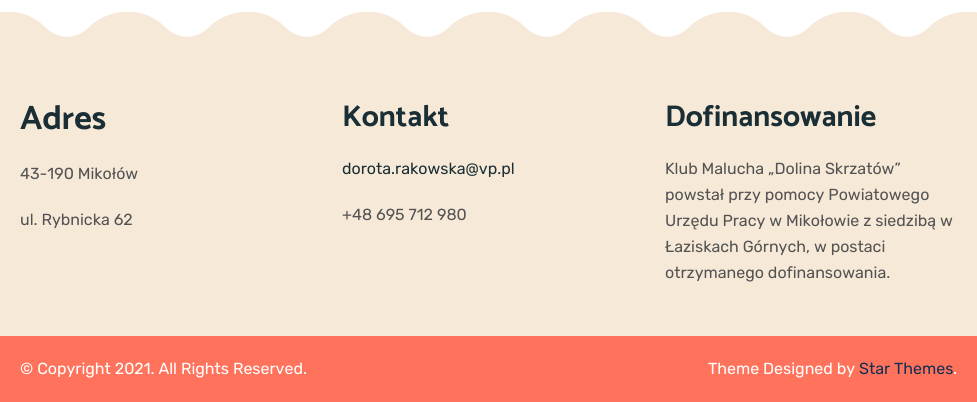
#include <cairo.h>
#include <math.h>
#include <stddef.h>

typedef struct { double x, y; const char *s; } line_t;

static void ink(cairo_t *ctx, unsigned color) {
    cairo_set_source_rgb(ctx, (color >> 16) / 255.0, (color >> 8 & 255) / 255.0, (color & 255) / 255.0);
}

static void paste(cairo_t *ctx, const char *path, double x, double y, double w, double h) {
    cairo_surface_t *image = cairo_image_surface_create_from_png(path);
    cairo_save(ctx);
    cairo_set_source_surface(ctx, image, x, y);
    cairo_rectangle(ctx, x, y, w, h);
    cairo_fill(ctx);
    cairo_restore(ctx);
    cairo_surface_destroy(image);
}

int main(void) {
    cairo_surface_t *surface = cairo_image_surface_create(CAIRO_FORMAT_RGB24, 977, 402);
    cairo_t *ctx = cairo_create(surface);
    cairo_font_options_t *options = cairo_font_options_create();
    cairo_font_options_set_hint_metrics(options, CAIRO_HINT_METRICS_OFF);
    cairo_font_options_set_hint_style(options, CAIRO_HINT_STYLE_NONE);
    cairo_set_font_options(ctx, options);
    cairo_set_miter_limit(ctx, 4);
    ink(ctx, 0xFFFFFF);
    cairo_paint(ctx);
    ink(ctx, 0xF7E9D8);
    cairo_rectangle(ctx, 0, 40, 977, 296);
    cairo_fill(ctx);
    paste(ctx, "media/1.png", 0, 12, 977, 28);
    cairo_select_font_face(ctx, "Catamaran", CAIRO_FONT_SLANT_NORMAL, CAIRO_FONT_WEIGHT_BOLD);
    cairo_set_font_size(ctx, 34);
    ink(ctx, 0x1A2E35);
    cairo_move_to(ctx, 20, 129);
    cairo_show_text(ctx, "Adres");
    cairo_select_font_face(ctx, "Rubik Light", CAIRO_FONT_SLANT_NORMAL, CAIRO_FONT_WEIGHT_NORMAL);
    cairo_set_font_size(ctx, 16);
    ink(ctx, 0x535353);
    cairo_move_to(ctx, 20, 179);
    cairo_show_text(ctx, "43-190 Mikołów");
    cairo_move_to(ctx, 20, 225);
    cairo_show_text(ctx, "ul. Rybnicka 62");
    cairo_select_font_face(ctx, "Catamaran", CAIRO_FONT_SLANT_NORMAL, CAIRO_FONT_WEIGHT_BOLD);
    cairo_set_font_size(ctx, 30);
    ink(ctx, 0x1A2E35);
    cairo_move_to(ctx, 342, 126);
    cairo_show_text(ctx, "Kontakt");
    cairo_select_font_face(ctx, "Rubik Light", CAIRO_FONT_SLANT_NORMAL, CAIRO_FONT_WEIGHT_NORMAL);
    cairo_set_font_size(ctx, 16);
    cairo_move_to(ctx, 342, 174);
    cairo_show_text(ctx, "dorota.rakowska@vp.pl");
    ink(ctx, 0x535353);
    cairo_move_to(ctx, 342, 220);
    cairo_show_text(ctx, "+48 695 712 980");
    cairo_select_font_face(ctx, "Catamaran", CAIRO_FONT_SLANT_NORMAL, CAIRO_FONT_WEIGHT_BOLD);
    cairo_set_font_size(ctx, 30);
    ink(ctx, 0x1A2E35);
    cairo_move_to(ctx, 665, 126);
    cairo_show_text(ctx, "Dofinansowanie");
    cairo_select_font_face(ctx, "Rubik Light", CAIRO_FONT_SLANT_NORMAL, CAIRO_FONT_WEIGHT_NORMAL);
    cairo_set_font_size(ctx, 16);
    ink(ctx, 0x535353);
    {
        static const line_t items[] = {
            {665, 174, "Klub Malucha „Dolina Skrzatów”"},
            {665, 200, "powstał przy pomocy Powiatowego"},
            {665, 226, "Urzędu Pracy w Mikołowie z siedzibą w"},
            {665, 252, "Łaziskach Górnych, w postaci"},
            {665, 278, "otrzymanego dofinansowania."},
        };
        for (size_t i = 0; i < sizeof items / sizeof *items; i++) {
            cairo_move_to(ctx, items[i].x, items[i].y);
            cairo_show_text(ctx, items[i].s);
        }
    }
    ink(ctx, 0xFF735C);
    cairo_rectangle(ctx, 0, 336, 977, 66);
    cairo_fill(ctx);
    ink(ctx, 0xFFFFFF);
    cairo_move_to(ctx, 20, 374);
    cairo_show_text(ctx, "© Copyright 2021. All Rights Reserved.");
    cairo_move_to(ctx, 708, 374);
    cairo_show_text(ctx, "Theme Designed by");
    ink(ctx, 0x122E53);
    cairo_move_to(ctx, 859, 374);
    cairo_show_text(ctx, "Star Themes");
    ink(ctx, 0xFFFFFF);
    cairo_move_to(ctx, 953, 374);
    cairo_show_text(ctx, ".");
    cairo_surface_write_to_png(surface, "image.png");
    cairo_font_options_destroy(options);
    cairo_destroy(ctx);
    cairo_surface_destroy(surface);
    return 0;
}
